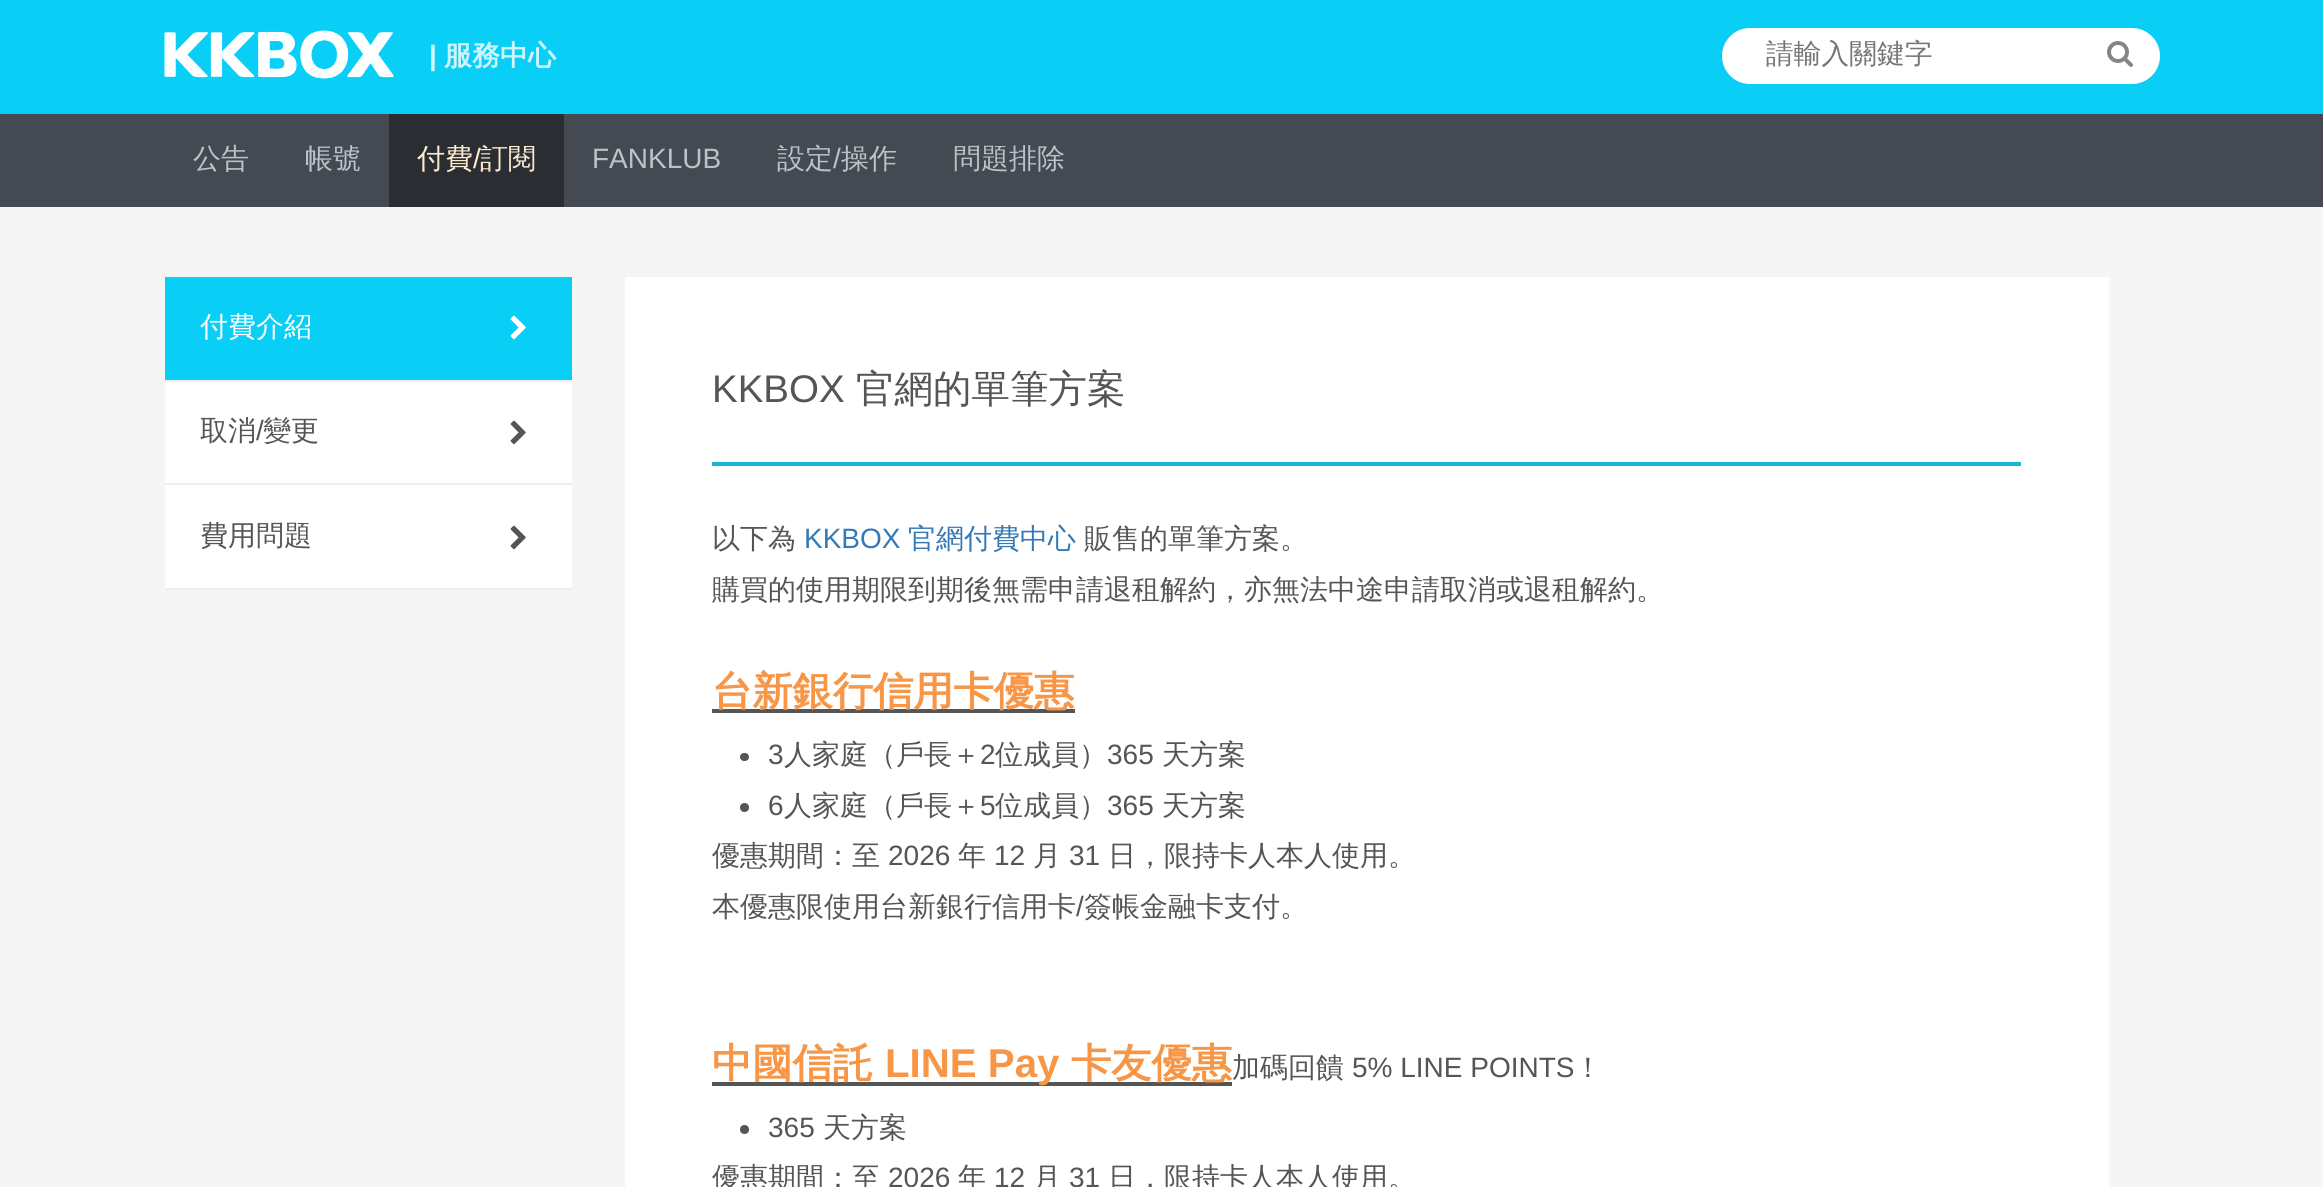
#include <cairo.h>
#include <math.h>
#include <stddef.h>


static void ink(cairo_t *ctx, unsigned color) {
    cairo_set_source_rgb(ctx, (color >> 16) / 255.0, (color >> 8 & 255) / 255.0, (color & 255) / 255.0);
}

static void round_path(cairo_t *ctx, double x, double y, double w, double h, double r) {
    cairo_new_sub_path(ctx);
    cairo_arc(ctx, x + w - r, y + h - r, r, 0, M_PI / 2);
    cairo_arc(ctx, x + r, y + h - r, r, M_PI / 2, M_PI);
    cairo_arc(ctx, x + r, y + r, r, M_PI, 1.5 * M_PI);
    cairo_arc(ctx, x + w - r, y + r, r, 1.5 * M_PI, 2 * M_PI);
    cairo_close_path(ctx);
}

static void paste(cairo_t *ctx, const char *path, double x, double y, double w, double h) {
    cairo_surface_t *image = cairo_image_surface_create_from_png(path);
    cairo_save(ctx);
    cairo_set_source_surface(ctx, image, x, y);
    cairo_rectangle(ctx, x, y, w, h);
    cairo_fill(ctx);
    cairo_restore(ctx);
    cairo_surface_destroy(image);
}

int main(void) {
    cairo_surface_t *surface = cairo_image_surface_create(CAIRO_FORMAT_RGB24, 2323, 1187);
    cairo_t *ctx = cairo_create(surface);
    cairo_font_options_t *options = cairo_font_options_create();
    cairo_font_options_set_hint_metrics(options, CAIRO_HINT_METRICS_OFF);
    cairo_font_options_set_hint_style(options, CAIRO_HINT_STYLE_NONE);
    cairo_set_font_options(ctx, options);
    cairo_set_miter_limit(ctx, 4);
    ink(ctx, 0xF5F5F5);
    cairo_paint(ctx);
    ink(ctx, 0x09CEF6);
    cairo_rectangle(ctx, 0, 0, 2323, 114);
    cairo_fill(ctx);
    paste(ctx, "media/1.png", 164, 30, 230, 49);
    cairo_select_font_face(ctx, "Liberation Sans", CAIRO_FONT_SLANT_NORMAL, CAIRO_FONT_WEIGHT_BOLD);
    cairo_set_font_size(ctx, 28);
    ink(ctx, 0xCEF5FD);
    cairo_move_to(ctx, 429, 65);
    cairo_show_text(ctx, "|");
    cairo_select_font_face(ctx, "WenQuanYi Zen Hei", CAIRO_FONT_SLANT_NORMAL, CAIRO_FONT_WEIGHT_BOLD);
    cairo_move_to(ctx, 444, 65);
    cairo_show_text(ctx, "服務中心");
    ink(ctx, 0xFFFFFF);
    round_path(ctx, 1722, 28, 438, 56, 28);
    cairo_fill(ctx);
    cairo_select_font_face(ctx, "WenQuanYi Zen Hei Medium", CAIRO_FONT_SLANT_NORMAL, CAIRO_FONT_WEIGHT_NORMAL);
    cairo_set_font_size(ctx, 27.75);
    ink(ctx, 0x757575);
    cairo_move_to(ctx, 1766, 63);
    cairo_show_text(ctx, "請輸入關鍵字");
    paste(ctx, "media/2.png", 2107, 41, 26, 26);
    ink(ctx, 0x454A52);
    cairo_rectangle(ctx, 0, 114, 2323, 93);
    cairo_fill(ctx);
    cairo_set_font_size(ctx, 28);
    ink(ctx, 0xBBC3CA);
    cairo_move_to(ctx, 193, 168);
    cairo_show_text(ctx, "公告");
    cairo_move_to(ctx, 305, 168);
    cairo_show_text(ctx, "帳號");
    ink(ctx, 0x2A2E33);
    cairo_rectangle(ctx, 389, 114, 175, 93);
    cairo_fill(ctx);
    ink(ctx, 0xFDEBCF);
    cairo_move_to(ctx, 417, 168);
    cairo_show_text(ctx, "付費");
    cairo_select_font_face(ctx, "Liberation Sans", CAIRO_FONT_SLANT_NORMAL, CAIRO_FONT_WEIGHT_NORMAL);
    cairo_move_to(ctx, 473, 168);
    cairo_show_text(ctx, "/");
    cairo_select_font_face(ctx, "WenQuanYi Zen Hei Medium", CAIRO_FONT_SLANT_NORMAL, CAIRO_FONT_WEIGHT_NORMAL);
    cairo_move_to(ctx, 480, 168);
    cairo_show_text(ctx, "訂閱");
    cairo_select_font_face(ctx, "Liberation Sans", CAIRO_FONT_SLANT_NORMAL, CAIRO_FONT_WEIGHT_NORMAL);
    ink(ctx, 0xBBC3CA);
    cairo_move_to(ctx, 592, 168);
    cairo_show_text(ctx, "FANKLUB");
    cairo_select_font_face(ctx, "WenQuanYi Zen Hei Medium", CAIRO_FONT_SLANT_NORMAL, CAIRO_FONT_WEIGHT_NORMAL);
    cairo_move_to(ctx, 777, 168);
    cairo_show_text(ctx, "設定");
    cairo_select_font_face(ctx, "Liberation Sans", CAIRO_FONT_SLANT_NORMAL, CAIRO_FONT_WEIGHT_NORMAL);
    cairo_move_to(ctx, 833, 168);
    cairo_show_text(ctx, "/");
    cairo_select_font_face(ctx, "WenQuanYi Zen Hei Medium", CAIRO_FONT_SLANT_NORMAL, CAIRO_FONT_WEIGHT_NORMAL);
    cairo_move_to(ctx, 841, 168);
    cairo_show_text(ctx, "操作");
    cairo_move_to(ctx, 953, 168);
    cairo_show_text(ctx, "問題排除");
    ink(ctx, 0xEEEEEE);
    cairo_rectangle(ctx, 165, 380, 407, 2);
    cairo_fill(ctx);
    ink(ctx, 0x09CEF6);
    cairo_rectangle(ctx, 165, 277, 407, 103);
    cairo_fill(ctx);
    ink(ctx, 0xFFFFFF);
    cairo_move_to(ctx, 200, 336);
    cairo_show_text(ctx, "付費介紹");
    paste(ctx, "media/3.png", 510, 315, 16, 25);
    cairo_rectangle(ctx, 165, 382, 407, 101);
    cairo_fill(ctx);
    ink(ctx, 0xEEEEEE);
    cairo_rectangle(ctx, 165, 483, 407, 2);
    cairo_fill(ctx);
    ink(ctx, 0x555555);
    cairo_move_to(ctx, 200, 440);
    cairo_show_text(ctx, "取消");
    cairo_select_font_face(ctx, "Liberation Sans", CAIRO_FONT_SLANT_NORMAL, CAIRO_FONT_WEIGHT_NORMAL);
    cairo_move_to(ctx, 256, 440);
    cairo_show_text(ctx, "/");
    cairo_select_font_face(ctx, "WenQuanYi Zen Hei Medium", CAIRO_FONT_SLANT_NORMAL, CAIRO_FONT_WEIGHT_NORMAL);
    cairo_move_to(ctx, 263, 440);
    cairo_show_text(ctx, "變更");
    paste(ctx, "media/4.png", 510, 420, 16, 25);
    ink(ctx, 0xFFFFFF);
    cairo_rectangle(ctx, 165, 485, 407, 103);
    cairo_fill(ctx);
    ink(ctx, 0xEEEEEE);
    cairo_rectangle(ctx, 165, 588, 407, 2);
    cairo_fill(ctx);
    ink(ctx, 0x555555);
    cairo_move_to(ctx, 200, 545);
    cairo_show_text(ctx, "費用問題");
    paste(ctx, "media/4.png", 510, 525, 16, 25);
    ink(ctx, 0xFFFFFF);
    cairo_rectangle(ctx, 625, 277, 1484, 910);
    cairo_fill(ctx);
    ink(ctx, 0x17B5DA);
    cairo_rectangle(ctx, 712, 462, 1309, 4);
    cairo_fill(ctx);
    cairo_select_font_face(ctx, "Liberation Sans", CAIRO_FONT_SLANT_NORMAL, CAIRO_FONT_WEIGHT_NORMAL);
    cairo_set_font_size(ctx, 38.5);
    ink(ctx, 0x555555);
    cairo_move_to(ctx, 712, 402);
    cairo_show_text(ctx, "KKBOX");
    cairo_select_font_face(ctx, "WenQuanYi Zen Hei Medium", CAIRO_FONT_SLANT_NORMAL, CAIRO_FONT_WEIGHT_NORMAL);
    cairo_move_to(ctx, 856, 402);
    cairo_show_text(ctx, "官網的單筆方案");
    cairo_set_font_size(ctx, 28);
    cairo_move_to(ctx, 712, 548);
    cairo_show_text(ctx, "以下為");
    cairo_select_font_face(ctx, "Liberation Sans", CAIRO_FONT_SLANT_NORMAL, CAIRO_FONT_WEIGHT_NORMAL);
    ink(ctx, 0x337AB7);
    cairo_move_to(ctx, 804, 548);
    cairo_show_text(ctx, "KKBOX");
    cairo_select_font_face(ctx, "WenQuanYi Zen Hei Medium", CAIRO_FONT_SLANT_NORMAL, CAIRO_FONT_WEIGHT_NORMAL);
    cairo_move_to(ctx, 908, 548);
    cairo_show_text(ctx, "官網付費中心");
    ink(ctx, 0x555555);
    cairo_move_to(ctx, 1084, 548);
    cairo_show_text(ctx, "販售的單筆方案。");
    cairo_move_to(ctx, 712, 599);
    cairo_show_text(ctx, "購買的使用期限到期後無需申請退租解約，亦無法中途申請取消或退租解約。");
    cairo_rectangle(ctx, 712, 709, 363, 4);
    cairo_fill(ctx);
    cairo_select_font_face(ctx, "WenQuanYi Zen Hei", CAIRO_FONT_SLANT_NORMAL, CAIRO_FONT_WEIGHT_BOLD);
    cairo_set_font_size(ctx, 40.25);
    ink(ctx, 0xF79646);
    cairo_move_to(ctx, 712, 705);
    cairo_show_text(ctx, "台新銀行信用卡優惠");
    ink(ctx, 0x555555);
    round_path(ctx, 740, 753, 9, 8, 4);
    cairo_fill(ctx);
    cairo_select_font_face(ctx, "Liberation Sans", CAIRO_FONT_SLANT_NORMAL, CAIRO_FONT_WEIGHT_NORMAL);
    cairo_set_font_size(ctx, 28);
    cairo_move_to(ctx, 768, 764);
    cairo_show_text(ctx, "3");
    cairo_select_font_face(ctx, "WenQuanYi Zen Hei Medium", CAIRO_FONT_SLANT_NORMAL, CAIRO_FONT_WEIGHT_NORMAL);
    cairo_move_to(ctx, 784, 764);
    cairo_show_text(ctx, "人家庭（戶長＋");
    cairo_select_font_face(ctx, "Liberation Sans", CAIRO_FONT_SLANT_NORMAL, CAIRO_FONT_WEIGHT_NORMAL);
    cairo_move_to(ctx, 980, 764);
    cairo_show_text(ctx, "2");
    cairo_select_font_face(ctx, "WenQuanYi Zen Hei Medium", CAIRO_FONT_SLANT_NORMAL, CAIRO_FONT_WEIGHT_NORMAL);
    cairo_move_to(ctx, 995, 764);
    cairo_show_text(ctx, "位成員）");
    cairo_select_font_face(ctx, "Liberation Sans", CAIRO_FONT_SLANT_NORMAL, CAIRO_FONT_WEIGHT_NORMAL);
    cairo_move_to(ctx, 1107, 764);
    cairo_show_text(ctx, "365");
    cairo_select_font_face(ctx, "WenQuanYi Zen Hei Medium", CAIRO_FONT_SLANT_NORMAL, CAIRO_FONT_WEIGHT_NORMAL);
    cairo_move_to(ctx, 1162, 764);
    cairo_show_text(ctx, "天方案");
    cairo_new_path(ctx);
    cairo_arc(ctx, 744.5, 807.5, 4.5, 0, 2 * M_PI);
    cairo_fill(ctx);
    cairo_select_font_face(ctx, "Liberation Sans", CAIRO_FONT_SLANT_NORMAL, CAIRO_FONT_WEIGHT_NORMAL);
    cairo_move_to(ctx, 768, 815);
    cairo_show_text(ctx, "6");
    cairo_select_font_face(ctx, "WenQuanYi Zen Hei Medium", CAIRO_FONT_SLANT_NORMAL, CAIRO_FONT_WEIGHT_NORMAL);
    cairo_move_to(ctx, 784, 815);
    cairo_show_text(ctx, "人家庭（戶長＋");
    cairo_select_font_face(ctx, "Liberation Sans", CAIRO_FONT_SLANT_NORMAL, CAIRO_FONT_WEIGHT_NORMAL);
    cairo_move_to(ctx, 980, 815);
    cairo_show_text(ctx, "5");
    cairo_select_font_face(ctx, "WenQuanYi Zen Hei Medium", CAIRO_FONT_SLANT_NORMAL, CAIRO_FONT_WEIGHT_NORMAL);
    cairo_move_to(ctx, 995, 815);
    cairo_show_text(ctx, "位成員）");
    cairo_select_font_face(ctx, "Liberation Sans", CAIRO_FONT_SLANT_NORMAL, CAIRO_FONT_WEIGHT_NORMAL);
    cairo_move_to(ctx, 1107, 815);
    cairo_show_text(ctx, "365");
    cairo_select_font_face(ctx, "WenQuanYi Zen Hei Medium", CAIRO_FONT_SLANT_NORMAL, CAIRO_FONT_WEIGHT_NORMAL);
    cairo_move_to(ctx, 1162, 815);
    cairo_show_text(ctx, "天方案");
    cairo_move_to(ctx, 712, 865);
    cairo_show_text(ctx, "優惠期間：至");
    cairo_select_font_face(ctx, "Liberation Sans", CAIRO_FONT_SLANT_NORMAL, CAIRO_FONT_WEIGHT_NORMAL);
    cairo_move_to(ctx, 888, 865);
    cairo_show_text(ctx, "2026");
    cairo_select_font_face(ctx, "WenQuanYi Zen Hei Medium", CAIRO_FONT_SLANT_NORMAL, CAIRO_FONT_WEIGHT_NORMAL);
    cairo_move_to(ctx, 958, 865);
    cairo_show_text(ctx, "年");
    cairo_select_font_face(ctx, "Liberation Sans", CAIRO_FONT_SLANT_NORMAL, CAIRO_FONT_WEIGHT_NORMAL);
    cairo_move_to(ctx, 994, 865);
    cairo_show_text(ctx, "12");
    cairo_select_font_face(ctx, "WenQuanYi Zen Hei Medium", CAIRO_FONT_SLANT_NORMAL, CAIRO_FONT_WEIGHT_NORMAL);
    cairo_move_to(ctx, 1033, 865);
    cairo_show_text(ctx, "月");
    cairo_select_font_face(ctx, "Liberation Sans", CAIRO_FONT_SLANT_NORMAL, CAIRO_FONT_WEIGHT_NORMAL);
    cairo_move_to(ctx, 1069, 865);
    cairo_show_text(ctx, "31");
    cairo_select_font_face(ctx, "WenQuanYi Zen Hei Medium", CAIRO_FONT_SLANT_NORMAL, CAIRO_FONT_WEIGHT_NORMAL);
    cairo_move_to(ctx, 1108, 865);
    cairo_show_text(ctx, "日，限持卡人本人使用。");
    cairo_move_to(ctx, 712, 916);
    cairo_show_text(ctx, "本優惠限使用台新銀行信用卡");
    cairo_select_font_face(ctx, "Liberation Sans", CAIRO_FONT_SLANT_NORMAL, CAIRO_FONT_WEIGHT_NORMAL);
    cairo_move_to(ctx, 1076, 916);
    cairo_show_text(ctx, "/");
    cairo_select_font_face(ctx, "WenQuanYi Zen Hei Medium", CAIRO_FONT_SLANT_NORMAL, CAIRO_FONT_WEIGHT_NORMAL);
    cairo_move_to(ctx, 1084, 916);
    cairo_show_text(ctx, "簽帳金融卡支付。");
    cairo_rectangle(ctx, 712, 1082, 520, 4);
    cairo_fill(ctx);
    cairo_select_font_face(ctx, "WenQuanYi Zen Hei", CAIRO_FONT_SLANT_NORMAL, CAIRO_FONT_WEIGHT_BOLD);
    cairo_set_font_size(ctx, 40.25);
    ink(ctx, 0xF79646);
    cairo_move_to(ctx, 712, 1077);
    cairo_show_text(ctx, "中國信託");
    cairo_select_font_face(ctx, "Liberation Sans", CAIRO_FONT_SLANT_NORMAL, CAIRO_FONT_WEIGHT_BOLD);
    cairo_move_to(ctx, 885, 1077);
    cairo_show_text(ctx, "LINE Pay");
    cairo_select_font_face(ctx, "WenQuanYi Zen Hei", CAIRO_FONT_SLANT_NORMAL, CAIRO_FONT_WEIGHT_BOLD);
    cairo_move_to(ctx, 1071, 1077);
    cairo_show_text(ctx, "卡友優惠");
    cairo_select_font_face(ctx, "WenQuanYi Zen Hei Medium", CAIRO_FONT_SLANT_NORMAL, CAIRO_FONT_WEIGHT_NORMAL);
    cairo_set_font_size(ctx, 28);
    ink(ctx, 0x555555);
    cairo_move_to(ctx, 1232, 1077);
    cairo_show_text(ctx, "加碼回饋");
    cairo_select_font_face(ctx, "Liberation Sans", CAIRO_FONT_SLANT_NORMAL, CAIRO_FONT_WEIGHT_NORMAL);
    cairo_move_to(ctx, 1352, 1077);
    cairo_show_text(ctx, "5% LINE POINTS");
    cairo_select_font_face(ctx, "WenQuanYi Zen Hei Medium", CAIRO_FONT_SLANT_NORMAL, CAIRO_FONT_WEIGHT_NORMAL);
    cairo_move_to(ctx, 1574, 1077);
    cairo_show_text(ctx, "！");
    cairo_new_path(ctx);
    cairo_arc(ctx, 744.5, 1129.5, 4.5, 0, 2 * M_PI);
    cairo_fill(ctx);
    cairo_select_font_face(ctx, "Liberation Sans", CAIRO_FONT_SLANT_NORMAL, CAIRO_FONT_WEIGHT_NORMAL);
    cairo_move_to(ctx, 768, 1137);
    cairo_show_text(ctx, "365");
    cairo_select_font_face(ctx, "WenQuanYi Zen Hei Medium", CAIRO_FONT_SLANT_NORMAL, CAIRO_FONT_WEIGHT_NORMAL);
    cairo_move_to(ctx, 823, 1137);
    cairo_show_text(ctx, "天方案");
    cairo_move_to(ctx, 712, 1187);
    cairo_show_text(ctx, "優惠期間：至");
    cairo_select_font_face(ctx, "Liberation Sans", CAIRO_FONT_SLANT_NORMAL, CAIRO_FONT_WEIGHT_NORMAL);
    cairo_move_to(ctx, 888, 1187);
    cairo_show_text(ctx, "2026");
    cairo_select_font_face(ctx, "WenQuanYi Zen Hei Medium", CAIRO_FONT_SLANT_NORMAL, CAIRO_FONT_WEIGHT_NORMAL);
    cairo_move_to(ctx, 958, 1187);
    cairo_show_text(ctx, "年");
    cairo_select_font_face(ctx, "Liberation Sans", CAIRO_FONT_SLANT_NORMAL, CAIRO_FONT_WEIGHT_NORMAL);
    cairo_move_to(ctx, 994, 1187);
    cairo_show_text(ctx, "12");
    cairo_select_font_face(ctx, "WenQuanYi Zen Hei Medium", CAIRO_FONT_SLANT_NORMAL, CAIRO_FONT_WEIGHT_NORMAL);
    cairo_move_to(ctx, 1033, 1187);
    cairo_show_text(ctx, "月");
    cairo_select_font_face(ctx, "Liberation Sans", CAIRO_FONT_SLANT_NORMAL, CAIRO_FONT_WEIGHT_NORMAL);
    cairo_move_to(ctx, 1069, 1187);
    cairo_show_text(ctx, "31");
    cairo_select_font_face(ctx, "WenQuanYi Zen Hei Medium", CAIRO_FONT_SLANT_NORMAL, CAIRO_FONT_WEIGHT_NORMAL);
    cairo_move_to(ctx, 1108, 1187);
    cairo_show_text(ctx, "日，限持卡人本人使用。");
    cairo_surface_write_to_png(surface, "image.png");
    cairo_font_options_destroy(options);
    cairo_destroy(ctx);
    cairo_surface_destroy(surface);
    return 0;
}
